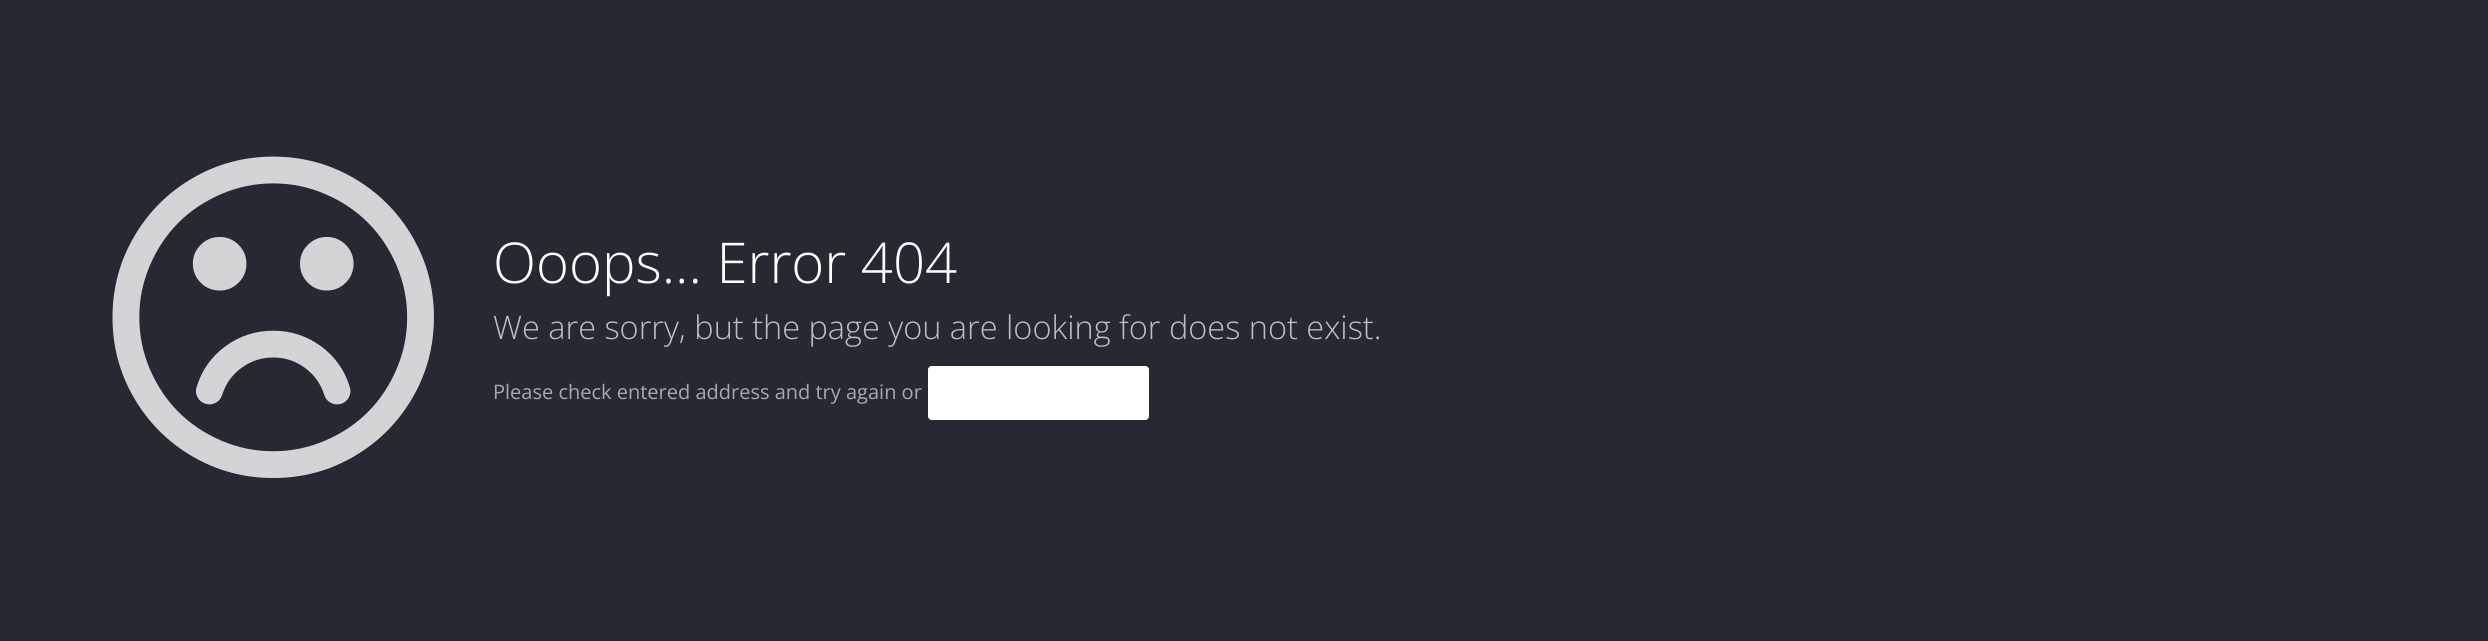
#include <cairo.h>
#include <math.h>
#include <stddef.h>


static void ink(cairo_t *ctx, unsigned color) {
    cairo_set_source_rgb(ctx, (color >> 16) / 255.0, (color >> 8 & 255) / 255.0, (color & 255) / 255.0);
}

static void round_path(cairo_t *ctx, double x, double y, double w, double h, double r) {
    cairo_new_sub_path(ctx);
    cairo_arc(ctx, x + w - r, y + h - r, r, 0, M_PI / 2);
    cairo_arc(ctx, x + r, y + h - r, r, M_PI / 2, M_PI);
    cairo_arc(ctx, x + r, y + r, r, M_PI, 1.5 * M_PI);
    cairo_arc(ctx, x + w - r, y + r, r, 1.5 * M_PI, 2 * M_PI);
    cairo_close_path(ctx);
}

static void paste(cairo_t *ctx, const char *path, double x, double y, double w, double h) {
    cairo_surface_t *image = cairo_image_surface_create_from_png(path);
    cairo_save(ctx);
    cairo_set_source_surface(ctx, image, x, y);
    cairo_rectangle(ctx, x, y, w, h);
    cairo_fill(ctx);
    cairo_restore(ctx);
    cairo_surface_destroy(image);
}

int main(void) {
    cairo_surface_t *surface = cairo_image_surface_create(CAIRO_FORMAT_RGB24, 2488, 641);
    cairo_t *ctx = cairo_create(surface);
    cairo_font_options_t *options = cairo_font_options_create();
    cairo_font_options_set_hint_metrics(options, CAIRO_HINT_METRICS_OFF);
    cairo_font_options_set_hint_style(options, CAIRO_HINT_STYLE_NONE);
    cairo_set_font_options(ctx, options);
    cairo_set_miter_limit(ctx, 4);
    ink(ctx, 0x262932);
    cairo_paint(ctx);
    paste(ctx, "media/1.png", 112, 156, 322, 322);
    cairo_select_font_face(ctx, "Open Sans Light", CAIRO_FONT_SLANT_NORMAL, CAIRO_FONT_WEIGHT_NORMAL);
    cairo_set_font_size(ctx, 56.25);
    ink(ctx, 0xFFFFFF);
    cairo_move_to(ctx, 493, 283);
    cairo_show_text(ctx, "Ooops... Error 404");
    cairo_set_font_size(ctx, 32.5);
    ink(ctx, 0xBEBFC2);
    cairo_move_to(ctx, 493, 339);
    cairo_show_text(ctx, "We are sorry, but the page you are looking for does not exist.");
    cairo_select_font_face(ctx, "Open Sans", CAIRO_FONT_SLANT_NORMAL, CAIRO_FONT_WEIGHT_NORMAL);
    cairo_set_font_size(ctx, 20);
    ink(ctx, 0xA8A9AD);
    cairo_move_to(ctx, 493, 399);
    cairo_show_text(ctx, "Please check entered address and try again or");
    ink(ctx, 0xFFFFFF);
    round_path(ctx, 928, 366, 221, 54, 4);
    cairo_fill(ctx);
    round_path(ctx, 929.5, 367.5, 218, 51, 2.5);
    cairo_set_source_rgba(ctx, 1, 1, 1, 0.7);
    cairo_set_line_width(ctx, 3);
    cairo_stroke(ctx);
    cairo_surface_write_to_png(surface, "image.png");
    cairo_font_options_destroy(options);
    cairo_destroy(ctx);
    cairo_surface_destroy(surface);
    return 0;
}
